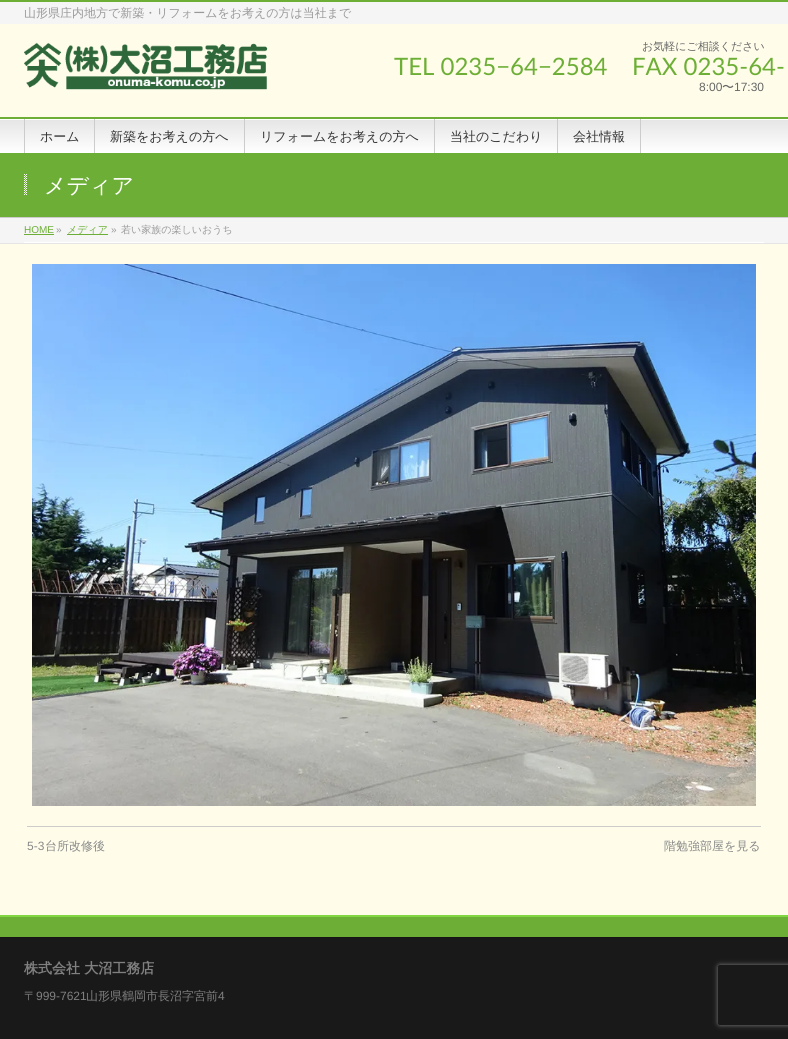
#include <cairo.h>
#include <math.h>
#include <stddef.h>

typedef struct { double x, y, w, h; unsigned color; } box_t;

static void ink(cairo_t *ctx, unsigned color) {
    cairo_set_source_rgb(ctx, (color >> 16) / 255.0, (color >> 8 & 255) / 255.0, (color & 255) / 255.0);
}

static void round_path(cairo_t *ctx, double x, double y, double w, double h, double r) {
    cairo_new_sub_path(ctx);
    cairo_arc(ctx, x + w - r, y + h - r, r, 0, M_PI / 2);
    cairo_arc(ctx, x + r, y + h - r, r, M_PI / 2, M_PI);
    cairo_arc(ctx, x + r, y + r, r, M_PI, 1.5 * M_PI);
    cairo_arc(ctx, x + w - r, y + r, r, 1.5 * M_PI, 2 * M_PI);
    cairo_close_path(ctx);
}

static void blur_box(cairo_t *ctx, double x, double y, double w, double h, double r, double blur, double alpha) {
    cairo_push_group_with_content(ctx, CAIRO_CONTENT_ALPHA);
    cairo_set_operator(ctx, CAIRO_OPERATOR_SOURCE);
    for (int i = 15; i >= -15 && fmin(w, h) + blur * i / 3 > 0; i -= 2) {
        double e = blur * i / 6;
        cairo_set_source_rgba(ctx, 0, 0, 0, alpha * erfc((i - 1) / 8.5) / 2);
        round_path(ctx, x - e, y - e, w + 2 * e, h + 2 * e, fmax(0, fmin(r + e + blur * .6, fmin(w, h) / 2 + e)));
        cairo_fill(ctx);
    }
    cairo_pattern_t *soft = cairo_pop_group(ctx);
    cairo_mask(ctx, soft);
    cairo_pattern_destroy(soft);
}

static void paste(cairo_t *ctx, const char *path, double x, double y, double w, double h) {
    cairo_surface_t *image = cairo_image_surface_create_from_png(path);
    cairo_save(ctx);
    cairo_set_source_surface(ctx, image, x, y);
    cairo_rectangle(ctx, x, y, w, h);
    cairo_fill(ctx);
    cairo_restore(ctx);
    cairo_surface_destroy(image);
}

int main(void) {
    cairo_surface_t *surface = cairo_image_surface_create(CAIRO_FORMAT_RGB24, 788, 1039);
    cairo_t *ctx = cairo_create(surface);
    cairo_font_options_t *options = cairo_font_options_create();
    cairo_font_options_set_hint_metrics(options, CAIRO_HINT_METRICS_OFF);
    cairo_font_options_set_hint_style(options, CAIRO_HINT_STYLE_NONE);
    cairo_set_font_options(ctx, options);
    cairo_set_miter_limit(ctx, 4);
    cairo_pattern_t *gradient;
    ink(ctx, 0xFFFDEA);
    cairo_paint(ctx);
    ink(ctx, 0xF5F5F5);
    cairo_rectangle(ctx, 0, 2, 788, 22);
    cairo_fill(ctx);
    ink(ctx, 0x6DAF36);
    cairo_rectangle(ctx, 0, 0, 788, 2);
    cairo_fill(ctx);
    cairo_select_font_face(ctx, "WenQuanYi Zen Hei Medium", CAIRO_FONT_SLANT_NORMAL, CAIRO_FONT_WEIGHT_NORMAL);
    cairo_set_font_size(ctx, 12);
    ink(ctx, 0x999999);
    cairo_move_to(ctx, 24, 17);
    cairo_show_text(ctx, "山形県庄内地方で新築・リフォームをお考えの方は当社まで");
    paste(ctx, "media/1.png", 24, 42, 244, 48);
    cairo_set_font_size(ctx, 11);
    ink(ctx, 0x666666);
    cairo_move_to(ctx, 642, 50);
    cairo_show_text(ctx, "お気軽にご相談ください");
    cairo_select_font_face(ctx, "Lato", CAIRO_FONT_SLANT_NORMAL, CAIRO_FONT_WEIGHT_NORMAL);
    cairo_set_font_size(ctx, 24);
    ink(ctx, 0x6DAF36);
    cairo_move_to(ctx, 394, 75);
    cairo_show_text(ctx, "TEL 0235−64−2584");
    cairo_move_to(ctx, 632, 75);
    cairo_show_text(ctx, "FAX 0235-64-");
    cairo_select_font_face(ctx, "Liberation Sans", CAIRO_FONT_SLANT_NORMAL, CAIRO_FONT_WEIGHT_NORMAL);
    cairo_set_font_size(ctx, 12);
    ink(ctx, 0x666666);
    cairo_move_to(ctx, 699, 91);
    cairo_show_text(ctx, "8:00");
    cairo_select_font_face(ctx, "WenQuanYi Zen Hei Medium", CAIRO_FONT_SLANT_NORMAL, CAIRO_FONT_WEIGHT_NORMAL);
    cairo_move_to(ctx, 722, 91);
    cairo_show_text(ctx, "〜");
    cairo_select_font_face(ctx, "Liberation Sans", CAIRO_FONT_SLANT_NORMAL, CAIRO_FONT_WEIGHT_NORMAL);
    cairo_move_to(ctx, 734, 91);
    cairo_show_text(ctx, "17:30");
    gradient = cairo_pattern_create_linear(0, 119, 0, 153);
    cairo_pattern_add_color_stop_rgba(gradient, 0, 0.898, 0.898, 0.898, 1);
    cairo_pattern_add_color_stop_rgba(gradient, 1, 1, 1, 1, 1);
    cairo_set_source(ctx, gradient);
    cairo_pattern_destroy(gradient);
    cairo_rectangle(ctx, 0, 120, 788, 33);
    cairo_fill(ctx);
    {
        static const box_t items[] = {
            {0, 119, 788, 1, 0xFFFFFF},
            {0, 117, 788, 2, 0x6DAF36},
            {24, 119, 1, 34, 0xCCCCCC},
            {94, 119, 1, 34, 0xCCCCCC},
        };
        for (size_t i = 0; i < sizeof items / sizeof *items; i++) {
            ink(ctx, items[i].color);
            cairo_rectangle(ctx, items[i].x, items[i].y, items[i].w, items[i].h);
            cairo_fill(ctx);
        }
    }
    cairo_select_font_face(ctx, "WenQuanYi Zen Hei Medium", CAIRO_FONT_SLANT_NORMAL, CAIRO_FONT_WEIGHT_NORMAL);
    cairo_set_font_size(ctx, 13);
    ink(ctx, 0x333333);
    cairo_move_to(ctx, 40, 141);
    cairo_show_text(ctx, "ホーム");
    ink(ctx, 0xCCCCCC);
    cairo_rectangle(ctx, 244, 119, 1, 34);
    cairo_fill(ctx);
    ink(ctx, 0x333333);
    cairo_move_to(ctx, 110, 141);
    cairo_show_text(ctx, "新築をお考えの方へ");
    ink(ctx, 0xCCCCCC);
    cairo_rectangle(ctx, 434, 119, 1, 34);
    cairo_fill(ctx);
    ink(ctx, 0x333333);
    cairo_move_to(ctx, 260, 141);
    cairo_show_text(ctx, "リフォームをお考えの方へ");
    ink(ctx, 0xCCCCCC);
    cairo_rectangle(ctx, 557, 119, 1, 34);
    cairo_fill(ctx);
    ink(ctx, 0x333333);
    cairo_move_to(ctx, 450, 141);
    cairo_show_text(ctx, "当社のこだわり");
    ink(ctx, 0xCCCCCC);
    cairo_rectangle(ctx, 640, 119, 1, 34);
    cairo_fill(ctx);
    ink(ctx, 0x333333);
    cairo_move_to(ctx, 573, 141);
    cairo_show_text(ctx, "会社情報");
    ink(ctx, 0x6DAF36);
    cairo_rectangle(ctx, 0, 153, 788, 64);
    cairo_fill(ctx);
    ink(ctx, 0xCCCCCC);
    cairo_rectangle(ctx, 0, 217, 788, 1);
    cairo_fill(ctx);
    paste(ctx, "media/2.png", 24, 174, 3, 21);
    cairo_set_font_size(ctx, 22);
    ink(ctx, 0xFFFFFF);
    cairo_move_to(ctx, 44, 193);
    cairo_show_text(ctx, "メディア");
    {
        static const box_t items[] = {
            {0, 218, 788, 25, 0xF5F5F5},
            {0, 243, 788, 1, 0xE5E5E5},
            {24, 242, 740, 1, 0xFFFFFF},
        };
        for (size_t i = 0; i < sizeof items / sizeof *items; i++) {
            ink(ctx, items[i].color);
            cairo_rectangle(ctx, items[i].x, items[i].y, items[i].w, items[i].h);
            cairo_fill(ctx);
        }
    }
    cairo_select_font_face(ctx, "Liberation Sans", CAIRO_FONT_SLANT_NORMAL, CAIRO_FONT_WEIGHT_NORMAL);
    cairo_set_font_size(ctx, 10);
    ink(ctx, 0x6DAF36);
    cairo_move_to(ctx, 24, 233);
    cairo_show_text(ctx, "HOME");
    cairo_rectangle(ctx, 24, 234, 30, 1);
    cairo_fill(ctx);
    ink(ctx, 0x999999);
    cairo_move_to(ctx, 56, 233);
    cairo_show_text(ctx, "»");
    ink(ctx, 0x6DAF36);
    cairo_rectangle(ctx, 67, 234, 41, 1);
    cairo_fill(ctx);
    cairo_select_font_face(ctx, "WenQuanYi Zen Hei Medium", CAIRO_FONT_SLANT_NORMAL, CAIRO_FONT_WEIGHT_NORMAL);
    cairo_move_to(ctx, 67, 233);
    cairo_show_text(ctx, "メディア");
    cairo_select_font_face(ctx, "Liberation Sans", CAIRO_FONT_SLANT_NORMAL, CAIRO_FONT_WEIGHT_NORMAL);
    ink(ctx, 0x999999);
    cairo_move_to(ctx, 111, 233);
    cairo_show_text(ctx, "»");
    cairo_select_font_face(ctx, "WenQuanYi Zen Hei Medium", CAIRO_FONT_SLANT_NORMAL, CAIRO_FONT_WEIGHT_NORMAL);
    cairo_move_to(ctx, 121, 233);
    cairo_show_text(ctx, "若い家族の楽しいおうち");
    paste(ctx, "media/3.png", 32, 264, 724, 542);
    ink(ctx, 0xCCCCCC);
    cairo_rectangle(ctx, 27, 826, 734, 1);
    cairo_fill(ctx);
    cairo_select_font_face(ctx, "Liberation Sans", CAIRO_FONT_SLANT_NORMAL, CAIRO_FONT_WEIGHT_NORMAL);
    cairo_set_font_size(ctx, 12);
    ink(ctx, 0x888888);
    cairo_move_to(ctx, 27, 850);
    cairo_show_text(ctx, "5-3");
    cairo_select_font_face(ctx, "WenQuanYi Zen Hei Medium", CAIRO_FONT_SLANT_NORMAL, CAIRO_FONT_WEIGHT_NORMAL);
    cairo_move_to(ctx, 45, 850);
    cairo_show_text(ctx, "台所改修後");
    cairo_move_to(ctx, 664, 850);
    cairo_show_text(ctx, "階勉強部屋を見る");
    {
        static const box_t items[] = {
            {0, 917, 788, 20, 0x6DAF36},
            {0, 915, 788, 2, 0x81D742},
            {0, 938, 788, 101, 0x191919},
            {0, 937, 788, 1, 0x151515},
        };
        for (size_t i = 0; i < sizeof items / sizeof *items; i++) {
            ink(ctx, items[i].color);
            cairo_rectangle(ctx, items[i].x, items[i].y, items[i].w, items[i].h);
            cairo_fill(ctx);
        }
    }
    cairo_select_font_face(ctx, "WenQuanYi Zen Hei", CAIRO_FONT_SLANT_NORMAL, CAIRO_FONT_WEIGHT_BOLD);
    cairo_set_font_size(ctx, 14);
    ink(ctx, 0x808080);
    cairo_move_to(ctx, 24, 973);
    cairo_show_text(ctx, "株式会社 大沼工務店");
    cairo_select_font_face(ctx, "WenQuanYi Zen Hei Medium", CAIRO_FONT_SLANT_NORMAL, CAIRO_FONT_WEIGHT_NORMAL);
    cairo_set_font_size(ctx, 12);
    cairo_move_to(ctx, 24, 1000);
    cairo_show_text(ctx, "〒");
    cairo_select_font_face(ctx, "Liberation Sans", CAIRO_FONT_SLANT_NORMAL, CAIRO_FONT_WEIGHT_NORMAL);
    cairo_move_to(ctx, 36, 1000);
    cairo_show_text(ctx, "999-7621");
    cairo_select_font_face(ctx, "WenQuanYi Zen Hei Medium", CAIRO_FONT_SLANT_NORMAL, CAIRO_FONT_WEIGHT_NORMAL);
    cairo_move_to(ctx, 86, 1000);
    cairo_show_text(ctx, "山形県鶴岡市長沼字宮前");
    cairo_select_font_face(ctx, "Liberation Sans", CAIRO_FONT_SLANT_NORMAL, CAIRO_FONT_WEIGHT_NORMAL);
    cairo_move_to(ctx, 218, 1000);
    cairo_show_text(ctx, "4");
    cairo_save(ctx);
    cairo_set_fill_rule(ctx, CAIRO_FILL_RULE_EVEN_ODD);
    cairo_new_path(ctx);
    cairo_move_to(ctx, 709, 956);
    cairo_line_to(ctx, 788, 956);
    cairo_line_to(ctx, 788, 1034);
    cairo_line_to(ctx, 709, 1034);
    cairo_close_path(ctx);
    cairo_move_to(ctx, 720, 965);
    cairo_line_to(ctx, 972, 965);
    cairo_curve_to(ctx, 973, 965, 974, 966, 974, 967);
    cairo_line_to(ctx, 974, 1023);
    cairo_curve_to(ctx, 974, 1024, 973, 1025, 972, 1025);
    cairo_line_to(ctx, 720, 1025);
    cairo_curve_to(ctx, 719, 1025, 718, 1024, 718, 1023);
    cairo_line_to(ctx, 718, 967);
    cairo_curve_to(ctx, 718, 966, 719, 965, 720, 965);
    cairo_close_path(ctx);
    cairo_clip(ctx);
    ink(ctx, 0x808080);
    blur_box(ctx, 718, 965, 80, 60, 2, 2.5, 1);
    cairo_restore(ctx);
    cairo_surface_write_to_png(surface, "image.png");
    cairo_font_options_destroy(options);
    cairo_destroy(ctx);
    cairo_surface_destroy(surface);
    return 0;
}
